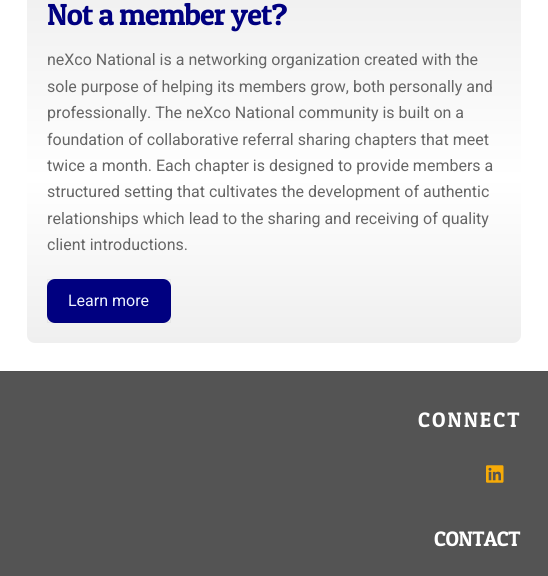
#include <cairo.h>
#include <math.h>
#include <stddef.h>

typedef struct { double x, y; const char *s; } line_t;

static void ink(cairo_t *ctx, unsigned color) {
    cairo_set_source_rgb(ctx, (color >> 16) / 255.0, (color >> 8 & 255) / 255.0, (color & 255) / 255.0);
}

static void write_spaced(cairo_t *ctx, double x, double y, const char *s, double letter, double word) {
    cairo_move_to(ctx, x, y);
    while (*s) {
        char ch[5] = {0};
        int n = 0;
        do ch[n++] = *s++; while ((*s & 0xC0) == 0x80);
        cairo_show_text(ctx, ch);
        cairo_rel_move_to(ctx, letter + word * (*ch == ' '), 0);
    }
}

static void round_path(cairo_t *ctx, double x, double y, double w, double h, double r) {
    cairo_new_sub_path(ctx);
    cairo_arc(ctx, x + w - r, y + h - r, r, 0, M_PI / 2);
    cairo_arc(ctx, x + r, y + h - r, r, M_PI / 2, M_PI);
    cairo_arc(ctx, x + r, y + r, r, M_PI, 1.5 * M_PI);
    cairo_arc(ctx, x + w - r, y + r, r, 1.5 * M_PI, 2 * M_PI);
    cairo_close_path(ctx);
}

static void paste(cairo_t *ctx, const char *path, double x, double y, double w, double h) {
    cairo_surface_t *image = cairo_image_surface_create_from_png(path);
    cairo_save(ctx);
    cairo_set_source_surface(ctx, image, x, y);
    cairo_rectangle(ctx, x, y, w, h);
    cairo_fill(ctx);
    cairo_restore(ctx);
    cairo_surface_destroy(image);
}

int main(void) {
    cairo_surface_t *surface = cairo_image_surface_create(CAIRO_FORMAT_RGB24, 548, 576);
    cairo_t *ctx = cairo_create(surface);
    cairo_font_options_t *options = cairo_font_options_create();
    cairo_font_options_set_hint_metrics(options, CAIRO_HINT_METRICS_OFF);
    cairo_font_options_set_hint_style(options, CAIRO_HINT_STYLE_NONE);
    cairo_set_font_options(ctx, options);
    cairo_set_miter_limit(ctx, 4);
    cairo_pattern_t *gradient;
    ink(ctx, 0xFFFFFF);
    cairo_paint(ctx);
    gradient = cairo_pattern_create_linear(274, -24, 274, 343);
    cairo_pattern_add_color_stop_rgba(gradient, 0, 0.937, 0.937, 0.937, 1);
    cairo_pattern_add_color_stop_rgba(gradient, 0.55, 1, 1, 1, 1);
    cairo_pattern_add_color_stop_rgba(gradient, 1, 0.937, 0.937, 0.937, 1);
    cairo_set_source(ctx, gradient);
    cairo_pattern_destroy(gradient);
    round_path(ctx, 27, -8, 494, 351, 8);
    cairo_fill(ctx);
    cairo_select_font_face(ctx, "Patua One", CAIRO_FONT_SLANT_NORMAL, CAIRO_FONT_WEIGHT_NORMAL);
    cairo_set_font_size(ctx, 30.5);
    ink(ctx, 0x000080);
    write_spaced(ctx, 47, 25, "Not a member yet?", -0.9, 0);
    cairo_select_font_face(ctx, "Roboto", CAIRO_FONT_SLANT_NORMAL, CAIRO_FONT_WEIGHT_NORMAL);
    cairo_set_font_size(ctx, 16);
    ink(ctx, 0x666666);
    {
        static const line_t items[] = {
            {47, 65, "neXco National is a networking organization created with the"},
            {47, 92, "sole purpose of helping its members grow, both personally and"},
            {47, 118, "professionally. The neXco National community is built on a"},
            {47, 145, "foundation of collaborative referral sharing chapters that meet"},
            {47, 171, "twice a month. Each chapter is designed to provide members a"},
            {47, 197, "structured setting that cultivates the development of authentic"},
            {47, 224, "relationships which lead to the sharing and receiving of quality"},
            {47, 250, "client introductions."},
        };
        for (size_t i = 0; i < sizeof items / sizeof *items; i++) {
            cairo_move_to(ctx, items[i].x, items[i].y);
            cairo_show_text(ctx, items[i].s);
        }
    }
    ink(ctx, 0x000080);
    round_path(ctx, 47, 279, 124, 44, 8);
    cairo_fill(ctx);
    cairo_rectangle(ctx, 47.5, 279.5, 123, 43);
    cairo_set_source_rgba(ctx, 0, 0, 0, 0.05);
    cairo_set_line_width(ctx, 1);
    cairo_stroke(ctx);
    ink(ctx, 0xEDF3FF);
    cairo_move_to(ctx, 68, 306);
    cairo_show_text(ctx, "Learn more");
    ink(ctx, 0x545454);
    cairo_rectangle(ctx, 0, 372, 548, 204);
    cairo_fill(ctx);
    ink(ctx, 0x505050);
    cairo_rectangle(ctx, 0, 371, 548, 1);
    cairo_fill(ctx);
    cairo_select_font_face(ctx, "Patua One", CAIRO_FONT_SLANT_NORMAL, CAIRO_FONT_WEIGHT_NORMAL);
    cairo_set_font_size(ctx, 21);
    ink(ctx, 0xFFFFFF);
    write_spaced(ctx, 418, 427, "CONNECT", 2, 0);
    paste(ctx, "media/1.png", 486, 465, 18, 18);
    write_spaced(ctx, 434, 546, "CONTACT", -0.5, 0);
    cairo_surface_write_to_png(surface, "image.png");
    cairo_font_options_destroy(options);
    cairo_destroy(ctx);
    cairo_surface_destroy(surface);
    return 0;
}
